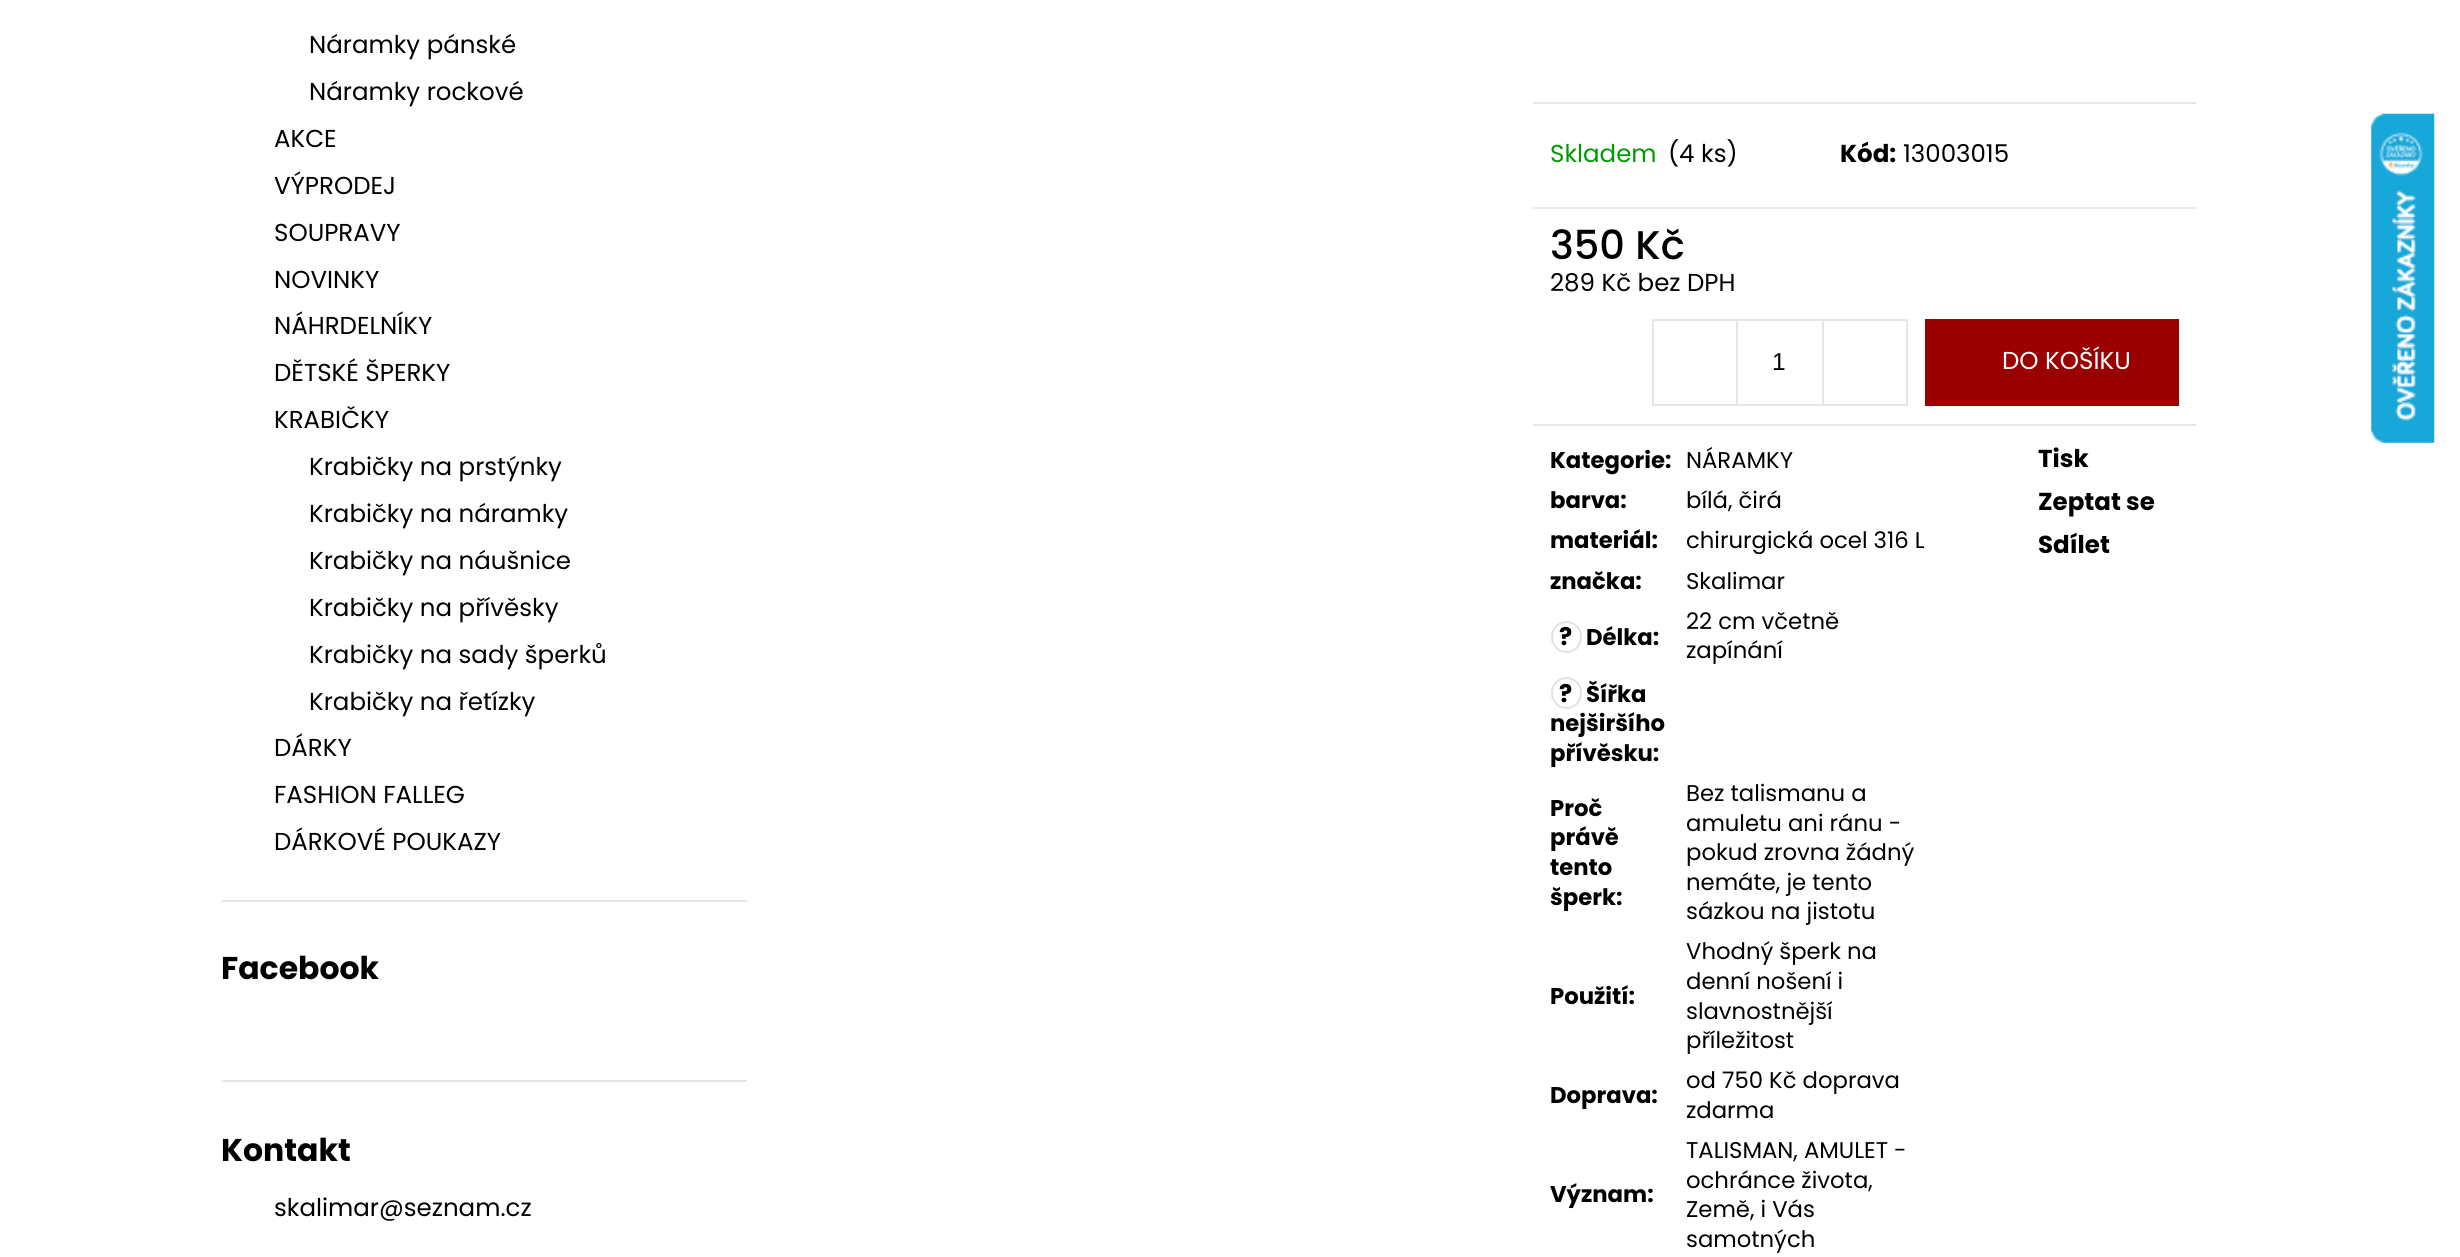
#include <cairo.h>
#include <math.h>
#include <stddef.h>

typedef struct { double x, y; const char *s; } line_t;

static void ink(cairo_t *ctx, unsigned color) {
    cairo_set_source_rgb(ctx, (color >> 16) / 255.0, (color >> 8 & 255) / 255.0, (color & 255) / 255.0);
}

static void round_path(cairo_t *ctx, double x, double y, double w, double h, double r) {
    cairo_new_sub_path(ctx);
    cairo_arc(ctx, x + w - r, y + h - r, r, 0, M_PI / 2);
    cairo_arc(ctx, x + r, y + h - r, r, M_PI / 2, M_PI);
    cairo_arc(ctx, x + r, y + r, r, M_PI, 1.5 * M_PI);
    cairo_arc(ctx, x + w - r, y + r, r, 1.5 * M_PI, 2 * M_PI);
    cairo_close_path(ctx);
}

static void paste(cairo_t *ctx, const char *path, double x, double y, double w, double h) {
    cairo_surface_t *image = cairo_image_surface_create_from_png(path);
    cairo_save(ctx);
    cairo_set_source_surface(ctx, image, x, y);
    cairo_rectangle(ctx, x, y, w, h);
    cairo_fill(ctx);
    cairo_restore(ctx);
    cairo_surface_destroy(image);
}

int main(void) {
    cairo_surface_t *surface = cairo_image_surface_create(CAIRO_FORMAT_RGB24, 2460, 1257);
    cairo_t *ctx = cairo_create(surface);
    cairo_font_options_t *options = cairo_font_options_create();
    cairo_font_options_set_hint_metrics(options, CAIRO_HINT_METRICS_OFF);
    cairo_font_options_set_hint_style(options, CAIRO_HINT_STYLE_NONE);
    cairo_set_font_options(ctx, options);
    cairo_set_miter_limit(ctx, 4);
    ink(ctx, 0xFFFFFF);
    cairo_paint(ctx);
    cairo_select_font_face(ctx, "Poppins", CAIRO_FONT_SLANT_NORMAL, CAIRO_FONT_WEIGHT_NORMAL);
    cairo_set_font_size(ctx, 24.5);
    ink(ctx, 0x000000);
    {
        static const line_t items[] = {
            {309, 53, "Náramky pánské"},
            {309, 100, "Náramky rockové"},
            {274, 147, "AKCE"},
            {274, 194, "VÝPRODEJ"},
            {274, 241, "SOUPRAVY"},
            {274, 288, "NOVINKY"},
            {274, 334, "NÁHRDELNÍKY"},
            {274, 381, "DĚTSKÉ ŠPERKY"},
            {274, 428, "KRABIČKY"},
            {309, 475, "Krabičky na prstýnky"},
            {309, 522, "Krabičky na náramky"},
            {309, 569, "Krabičky na náušnice"},
            {309, 616, "Krabičky na přívěsky"},
            {309, 663, "Krabičky na sady šperků"},
            {309, 710, "Krabičky na řetízky"},
            {274, 756, "DÁRKY"},
            {274, 803, "FASHION FALLEG"},
            {274, 850, "DÁRKOVÉ POUKAZY"},
        };
        for (size_t i = 0; i < sizeof items / sizeof *items; i++) {
            cairo_move_to(ctx, items[i].x, items[i].y);
            cairo_show_text(ctx, items[i].s);
        }
    }
    ink(ctx, 0xE6E6E6);
    cairo_rectangle(ctx, 222, 900, 525, 2);
    cairo_fill(ctx);
    cairo_select_font_face(ctx, "Poppins", CAIRO_FONT_SLANT_NORMAL, CAIRO_FONT_WEIGHT_BOLD);
    cairo_set_font_size(ctx, 31.5);
    ink(ctx, 0x000000);
    cairo_move_to(ctx, 221, 979);
    cairo_show_text(ctx, "Facebook");
    ink(ctx, 0xE6E6E6);
    cairo_rectangle(ctx, 222, 1080, 525, 2);
    cairo_fill(ctx);
    ink(ctx, 0x000000);
    cairo_move_to(ctx, 221, 1161);
    cairo_show_text(ctx, "Kontakt");
    cairo_select_font_face(ctx, "Poppins", CAIRO_FONT_SLANT_NORMAL, CAIRO_FONT_WEIGHT_NORMAL);
    cairo_set_font_size(ctx, 24.5);
    cairo_move_to(ctx, 274, 1216);
    cairo_show_text(ctx, "skalimar@seznam.cz");
    ink(ctx, 0xE7E7E7);
    cairo_rectangle(ctx, 1533, 102, 663, 2);
    cairo_fill(ctx);
    cairo_rectangle(ctx, 1533, 207, 663, 2);
    cairo_fill(ctx);
    ink(ctx, 0x009901);
    cairo_move_to(ctx, 1550, 162);
    cairo_show_text(ctx, "Skladem");
    ink(ctx, 0x000000);
    cairo_move_to(ctx, 1668, 162);
    cairo_show_text(ctx, "(4 ks)");
    cairo_select_font_face(ctx, "Poppins", CAIRO_FONT_SLANT_NORMAL, CAIRO_FONT_WEIGHT_BOLD);
    cairo_move_to(ctx, 1840, 162);
    cairo_show_text(ctx, "Kód:");
    cairo_select_font_face(ctx, "Poppins", CAIRO_FONT_SLANT_NORMAL, CAIRO_FONT_WEIGHT_NORMAL);
    cairo_move_to(ctx, 1903, 162);
    cairo_show_text(ctx, "13003015");
    ink(ctx, 0xE7E7E7);
    cairo_rectangle(ctx, 1533, 424, 663, 2);
    cairo_fill(ctx);
    cairo_select_font_face(ctx, "Poppins Medium", CAIRO_FONT_SLANT_NORMAL, CAIRO_FONT_WEIGHT_NORMAL);
    cairo_set_font_size(ctx, 40);
    ink(ctx, 0x000000);
    cairo_move_to(ctx, 1550, 259);
    cairo_show_text(ctx, "350 Kč");
    cairo_select_font_face(ctx, "Poppins", CAIRO_FONT_SLANT_NORMAL, CAIRO_FONT_WEIGHT_NORMAL);
    cairo_set_font_size(ctx, 24.5);
    cairo_move_to(ctx, 1550, 291);
    cairo_show_text(ctx, "289 Kč bez DPH");
    cairo_rectangle(ctx, 1653, 320, 254, 85);
    ink(ctx, 0xE6E6E6);
    cairo_stroke(ctx);
    cairo_rectangle(ctx, 1736, 320, 2, 84);
    cairo_fill(ctx);
    cairo_select_font_face(ctx, "Liberation Sans", CAIRO_FONT_SLANT_NORMAL, CAIRO_FONT_WEIGHT_NORMAL);
    ink(ctx, 0x000000);
    cairo_move_to(ctx, 1772, 370);
    cairo_show_text(ctx, "1");
    ink(ctx, 0xE6E6E6);
    cairo_rectangle(ctx, 1822, 320, 2, 84);
    cairo_fill(ctx);
    ink(ctx, 0x9A0000);
    cairo_rectangle(ctx, 1925, 319, 254, 87);
    cairo_fill(ctx);
    cairo_select_font_face(ctx, "Poppins", CAIRO_FONT_SLANT_NORMAL, CAIRO_FONT_WEIGHT_NORMAL);
    ink(ctx, 0xFFFFFF);
    cairo_move_to(ctx, 2002, 369);
    cairo_show_text(ctx, "DO KOŠÍKU");
    cairo_select_font_face(ctx, "Poppins", CAIRO_FONT_SLANT_NORMAL, CAIRO_FONT_WEIGHT_BOLD);
    cairo_set_font_size(ctx, 22.75);
    ink(ctx, 0x000000);
    cairo_move_to(ctx, 1550, 468);
    cairo_show_text(ctx, "Kategorie:");
    cairo_select_font_face(ctx, "Poppins", CAIRO_FONT_SLANT_NORMAL, CAIRO_FONT_WEIGHT_NORMAL);
    cairo_move_to(ctx, 1686, 468);
    cairo_show_text(ctx, "NÁRAMKY");
    cairo_select_font_face(ctx, "Poppins", CAIRO_FONT_SLANT_NORMAL, CAIRO_FONT_WEIGHT_BOLD);
    cairo_move_to(ctx, 1550, 508);
    cairo_show_text(ctx, "barva:");
    cairo_select_font_face(ctx, "Poppins", CAIRO_FONT_SLANT_NORMAL, CAIRO_FONT_WEIGHT_NORMAL);
    cairo_move_to(ctx, 1686, 508);
    cairo_show_text(ctx, "bílá, čirá");
    cairo_select_font_face(ctx, "Poppins", CAIRO_FONT_SLANT_NORMAL, CAIRO_FONT_WEIGHT_BOLD);
    cairo_move_to(ctx, 1550, 548);
    cairo_show_text(ctx, "materiál:");
    cairo_select_font_face(ctx, "Poppins", CAIRO_FONT_SLANT_NORMAL, CAIRO_FONT_WEIGHT_NORMAL);
    cairo_move_to(ctx, 1686, 548);
    cairo_show_text(ctx, "chirurgická ocel 316 L");
    cairo_select_font_face(ctx, "Poppins", CAIRO_FONT_SLANT_NORMAL, CAIRO_FONT_WEIGHT_BOLD);
    cairo_move_to(ctx, 1550, 589);
    cairo_show_text(ctx, "značka:");
    cairo_select_font_face(ctx, "Poppins", CAIRO_FONT_SLANT_NORMAL, CAIRO_FONT_WEIGHT_NORMAL);
    cairo_move_to(ctx, 1686, 589);
    cairo_show_text(ctx, "Skalimar");
    round_path(ctx, 1552, 622, 29, 30, 14.5);
    ink(ctx, 0xE2E2E2);
    cairo_stroke(ctx);
    cairo_select_font_face(ctx, "Poppins", CAIRO_FONT_SLANT_NORMAL, CAIRO_FONT_WEIGHT_BOLD);
    cairo_set_font_size(ctx, 24.5);
    ink(ctx, 0x000000);
    cairo_move_to(ctx, 1559, 645);
    cairo_show_text(ctx, "?");
    cairo_set_font_size(ctx, 22.75);
    cairo_move_to(ctx, 1586, 645);
    cairo_show_text(ctx, "Délka:");
    cairo_select_font_face(ctx, "Poppins", CAIRO_FONT_SLANT_NORMAL, CAIRO_FONT_WEIGHT_NORMAL);
    cairo_move_to(ctx, 1686, 629);
    cairo_show_text(ctx, "22 cm včetně");
    cairo_move_to(ctx, 1686, 658);
    cairo_show_text(ctx, "zapínání");
    round_path(ctx, 1552, 678, 29, 30, 14.5);
    ink(ctx, 0xE2E2E2);
    cairo_stroke(ctx);
    cairo_select_font_face(ctx, "Poppins", CAIRO_FONT_SLANT_NORMAL, CAIRO_FONT_WEIGHT_BOLD);
    cairo_set_font_size(ctx, 24.5);
    ink(ctx, 0x000000);
    cairo_move_to(ctx, 1559, 702);
    cairo_show_text(ctx, "?");
    cairo_set_font_size(ctx, 22.75);
    {
        static const line_t items[] = {
            {1586, 702, "Šířka"},
            {1550, 731, "nejširšího"},
            {1550, 761, "přívěsku:"},
            {1550, 816, "Proč"},
            {1550, 845, "právě"},
            {1550, 875, "tento"},
            {1550, 905, "šperk:"},
        };
        for (size_t i = 0; i < sizeof items / sizeof *items; i++) {
            cairo_move_to(ctx, items[i].x, items[i].y);
            cairo_show_text(ctx, items[i].s);
        }
    }
    cairo_select_font_face(ctx, "Poppins", CAIRO_FONT_SLANT_NORMAL, CAIRO_FONT_WEIGHT_NORMAL);
    {
        static const line_t items[] = {
            {1686, 801, "Bez talismanu a"},
            {1686, 831, "amuletu ani ránu -"},
            {1686, 860, "pokud zrovna žádný"},
            {1686, 890, "nemáte, je tento"},
            {1686, 919, "sázkou na jistotu"},
        };
        for (size_t i = 0; i < sizeof items / sizeof *items; i++) {
            cairo_move_to(ctx, items[i].x, items[i].y);
            cairo_show_text(ctx, items[i].s);
        }
    }
    cairo_select_font_face(ctx, "Poppins", CAIRO_FONT_SLANT_NORMAL, CAIRO_FONT_WEIGHT_BOLD);
    cairo_move_to(ctx, 1550, 1004);
    cairo_show_text(ctx, "Použití:");
    cairo_select_font_face(ctx, "Poppins", CAIRO_FONT_SLANT_NORMAL, CAIRO_FONT_WEIGHT_NORMAL);
    {
        static const line_t items[] = {
            {1686, 959, "Vhodný šperk na"},
            {1686, 989, "denní nošení i"},
            {1686, 1019, "slavnostnější"},
            {1686, 1048, "příležitost"},
        };
        for (size_t i = 0; i < sizeof items / sizeof *items; i++) {
            cairo_move_to(ctx, items[i].x, items[i].y);
            cairo_show_text(ctx, items[i].s);
        }
    }
    cairo_select_font_face(ctx, "Poppins", CAIRO_FONT_SLANT_NORMAL, CAIRO_FONT_WEIGHT_BOLD);
    cairo_move_to(ctx, 1550, 1103);
    cairo_show_text(ctx, "Doprava:");
    cairo_select_font_face(ctx, "Poppins", CAIRO_FONT_SLANT_NORMAL, CAIRO_FONT_WEIGHT_NORMAL);
    cairo_move_to(ctx, 1686, 1088);
    cairo_show_text(ctx, "od 750 Kč doprava");
    cairo_move_to(ctx, 1686, 1118);
    cairo_show_text(ctx, "zdarma");
    cairo_select_font_face(ctx, "Poppins", CAIRO_FONT_SLANT_NORMAL, CAIRO_FONT_WEIGHT_BOLD);
    cairo_move_to(ctx, 1550, 1202);
    cairo_show_text(ctx, "Význam:");
    cairo_select_font_face(ctx, "Poppins", CAIRO_FONT_SLANT_NORMAL, CAIRO_FONT_WEIGHT_NORMAL);
    {
        static const line_t items[] = {
            {1686, 1158, "TALISMAN, AMULET -"},
            {1686, 1188, "ochránce života,"},
            {1686, 1217, "Země, i Vás"},
            {1686, 1247, "samotných"},
        };
        for (size_t i = 0; i < sizeof items / sizeof *items; i++) {
            cairo_move_to(ctx, items[i].x, items[i].y);
            cairo_show_text(ctx, items[i].s);
        }
    }
    cairo_select_font_face(ctx, "Poppins", CAIRO_FONT_SLANT_NORMAL, CAIRO_FONT_WEIGHT_BOLD);
    cairo_set_font_size(ctx, 24.5);
    {
        static const line_t items[] = {
            {2038, 467, "Tisk"},
            {2038, 510, "Zeptat se"},
            {2038, 553, "Sdílet"},
        };
        for (size_t i = 0; i < sizeof items / sizeof *items; i++) {
            cairo_move_to(ctx, items[i].x, items[i].y);
            cairo_show_text(ctx, items[i].s);
        }
    }
    paste(ctx, "media/1.png", 2371, 113, 64, 330);
    cairo_surface_write_to_png(surface, "image.png");
    cairo_font_options_destroy(options);
    cairo_destroy(ctx);
    cairo_surface_destroy(surface);
    return 0;
}
